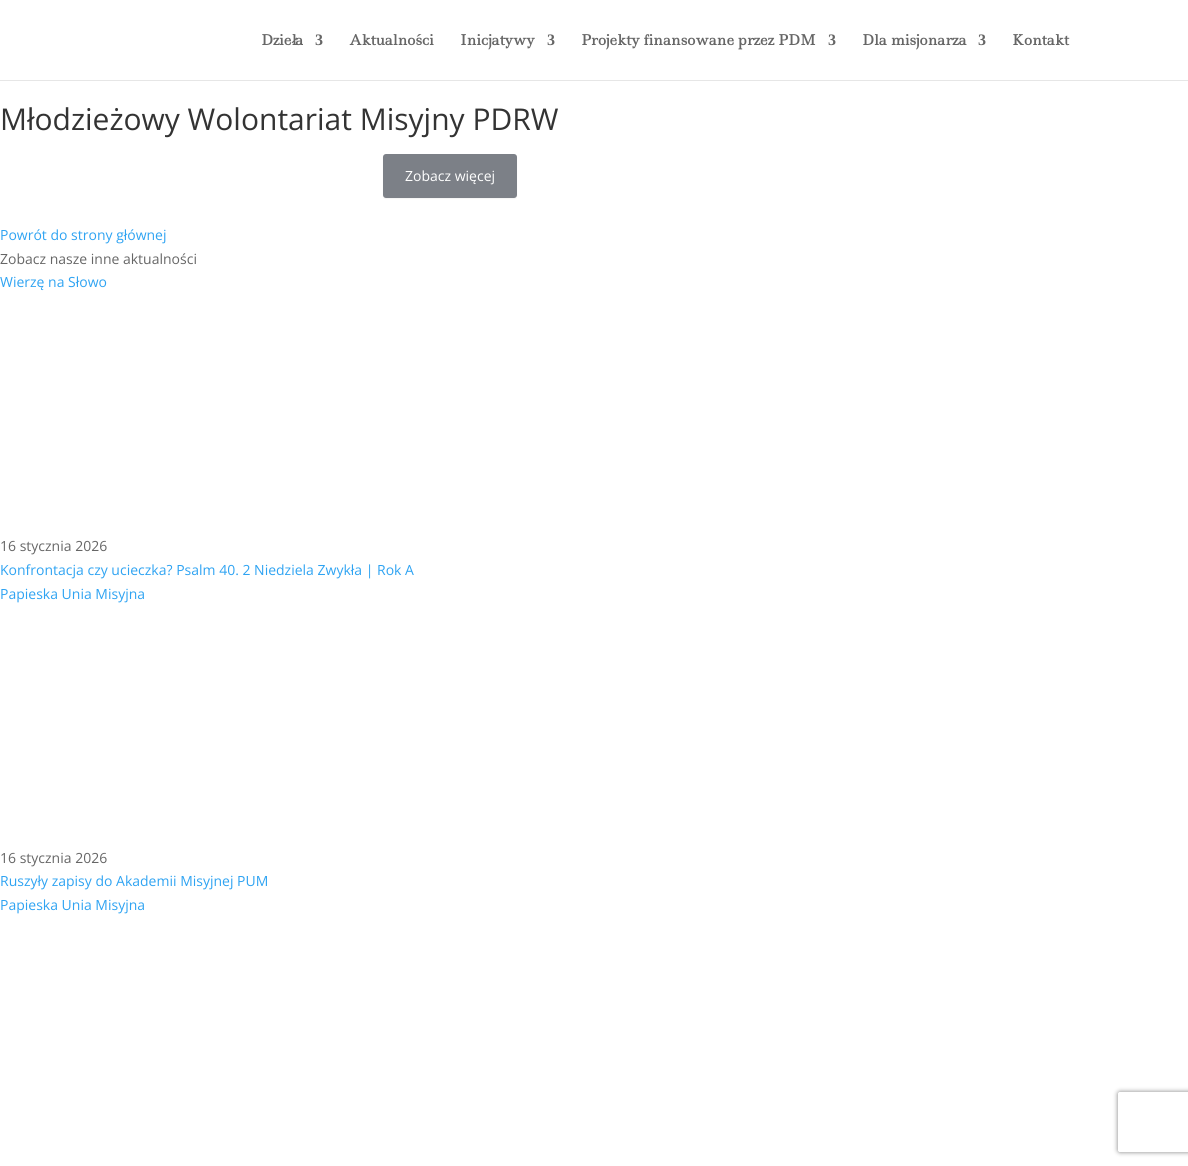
#include <cairo.h>
#include <math.h>
#include <stddef.h>


static void ink(cairo_t *ctx, unsigned color) {
    cairo_set_source_rgb(ctx, (color >> 16) / 255.0, (color >> 8 & 255) / 255.0, (color & 255) / 255.0);
}

static void round_path(cairo_t *ctx, double x, double y, double w, double h, double r) {
    cairo_new_sub_path(ctx);
    cairo_arc(ctx, x + w - r, y + h - r, r, 0, M_PI / 2);
    cairo_arc(ctx, x + r, y + h - r, r, M_PI / 2, M_PI);
    cairo_arc(ctx, x + r, y + r, r, M_PI, 1.5 * M_PI);
    cairo_arc(ctx, x + w - r, y + r, r, 1.5 * M_PI, 2 * M_PI);
    cairo_close_path(ctx);
}

static void blur_box(cairo_t *ctx, double x, double y, double w, double h, double r, double blur, double alpha) {
    cairo_push_group_with_content(ctx, CAIRO_CONTENT_ALPHA);
    cairo_set_operator(ctx, CAIRO_OPERATOR_SOURCE);
    for (int i = 15; i >= -15 && fmin(w, h) + blur * i / 3 > 0; i -= 2) {
        double e = blur * i / 6;
        cairo_set_source_rgba(ctx, 0, 0, 0, alpha * erfc((i - 1) / 8.5) / 2);
        round_path(ctx, x - e, y - e, w + 2 * e, h + 2 * e, fmax(0, fmin(r + e + blur * .6, fmin(w, h) / 2 + e)));
        cairo_fill(ctx);
    }
    cairo_pattern_t *soft = cairo_pop_group(ctx);
    cairo_mask(ctx, soft);
    cairo_pattern_destroy(soft);
}

int main(void) {
    cairo_surface_t *surface = cairo_image_surface_create(CAIRO_FORMAT_RGB24, 1188, 1166);
    cairo_t *ctx = cairo_create(surface);
    cairo_font_options_t *options = cairo_font_options_create();
    cairo_font_options_set_hint_metrics(options, CAIRO_HINT_METRICS_OFF);
    cairo_font_options_set_hint_style(options, CAIRO_HINT_STYLE_NONE);
    cairo_set_font_options(ctx, options);
    cairo_set_miter_limit(ctx, 4);
    ink(ctx, 0xFFFFFF);
    cairo_paint(ctx);
    ink(ctx, 0xE6E6E6);
    cairo_rectangle(ctx, 0, 80, 1188, 1);
    cairo_fill(ctx);
    cairo_select_font_face(ctx, "Ledger", CAIRO_FONT_SLANT_NORMAL, CAIRO_FONT_WEIGHT_BOLD);
    cairo_set_font_size(ctx, 14);
    ink(ctx, 0x666666);
    cairo_move_to(ctx, 261, 45);
    cairo_show_text(ctx, "Dzieła");
    cairo_select_font_face(ctx, "Liberation Serif", CAIRO_FONT_SLANT_NORMAL, CAIRO_FONT_WEIGHT_BOLD);
    cairo_set_font_size(ctx, 16);
    cairo_move_to(ctx, 315, 45);
    cairo_show_text(ctx, "3");
    cairo_select_font_face(ctx, "Ledger", CAIRO_FONT_SLANT_NORMAL, CAIRO_FONT_WEIGHT_BOLD);
    cairo_set_font_size(ctx, 14);
    cairo_move_to(ctx, 349, 45);
    cairo_show_text(ctx, "Aktualności");
    cairo_move_to(ctx, 460, 45);
    cairo_show_text(ctx, "Inicjatywy");
    cairo_select_font_face(ctx, "Liberation Serif", CAIRO_FONT_SLANT_NORMAL, CAIRO_FONT_WEIGHT_BOLD);
    cairo_set_font_size(ctx, 16);
    cairo_move_to(ctx, 547, 45);
    cairo_show_text(ctx, "3");
    cairo_select_font_face(ctx, "Ledger", CAIRO_FONT_SLANT_NORMAL, CAIRO_FONT_WEIGHT_BOLD);
    cairo_set_font_size(ctx, 14);
    cairo_move_to(ctx, 581, 45);
    cairo_show_text(ctx, "Projekty finansowane przez PDM");
    cairo_select_font_face(ctx, "Liberation Serif", CAIRO_FONT_SLANT_NORMAL, CAIRO_FONT_WEIGHT_BOLD);
    cairo_set_font_size(ctx, 16);
    cairo_move_to(ctx, 828, 45);
    cairo_show_text(ctx, "3");
    cairo_select_font_face(ctx, "Ledger", CAIRO_FONT_SLANT_NORMAL, CAIRO_FONT_WEIGHT_BOLD);
    cairo_set_font_size(ctx, 14);
    cairo_move_to(ctx, 862, 45);
    cairo_show_text(ctx, "Dla misjonarza");
    cairo_select_font_face(ctx, "Liberation Serif", CAIRO_FONT_SLANT_NORMAL, CAIRO_FONT_WEIGHT_BOLD);
    cairo_set_font_size(ctx, 16);
    cairo_move_to(ctx, 978, 45);
    cairo_show_text(ctx, "3");
    cairo_select_font_face(ctx, "Ledger", CAIRO_FONT_SLANT_NORMAL, CAIRO_FONT_WEIGHT_BOLD);
    cairo_set_font_size(ctx, 14);
    cairo_move_to(ctx, 1012, 45);
    cairo_show_text(ctx, "Kontakt");
    cairo_select_font_face(ctx, "Open Sans", CAIRO_FONT_SLANT_NORMAL, CAIRO_FONT_WEIGHT_NORMAL);
    cairo_set_font_size(ctx, 30);
    ink(ctx, 0x333333);
    cairo_move_to(ctx, 0, 130);
    cairo_show_text(ctx, "Młodzieżowy Wolontariat Misyjny PDRW");
    ink(ctx, 0x000000);
    blur_box(ctx, 383, 155, 134, 44, 3, 0.5, 0.05);
    ink(ctx, 0x7C8087);
    round_path(ctx, 383, 154, 134, 44, 3);
    cairo_fill(ctx);
    cairo_set_font_size(ctx, 14);
    ink(ctx, 0xFFFFFF);
    cairo_move_to(ctx, 405, 181);
    cairo_show_text(ctx, "Zobacz więcej");
    ink(ctx, 0x2EA3F2);
    cairo_move_to(ctx, 0, 240);
    cairo_show_text(ctx, "Powrót do strony głównej");
    ink(ctx, 0x666666);
    cairo_move_to(ctx, 0, 264);
    cairo_show_text(ctx, "Zobacz nasze inne aktualności");
    ink(ctx, 0x2EA3F2);
    cairo_move_to(ctx, 0, 287);
    cairo_show_text(ctx, "Wierzę na Słowo");
    ink(ctx, 0x666666);
    cairo_move_to(ctx, 0, 551);
    cairo_show_text(ctx, "16 stycznia 2026");
    ink(ctx, 0x2EA3F2);
    cairo_move_to(ctx, 0, 575);
    cairo_show_text(ctx, "Konfrontacja czy ucieczka? Psalm 40. 2 Niedziela Zwykła | Rok A");
    cairo_move_to(ctx, 0, 599);
    cairo_show_text(ctx, "Papieska Unia Misyjna");
    ink(ctx, 0x666666);
    cairo_move_to(ctx, 0, 863);
    cairo_show_text(ctx, "16 stycznia 2026");
    ink(ctx, 0x2EA3F2);
    cairo_move_to(ctx, 0, 886);
    cairo_show_text(ctx, "Ruszyły zapisy do Akademii Misyjnej PUM");
    cairo_move_to(ctx, 0, 910);
    cairo_show_text(ctx, "Papieska Unia Misyjna");
    cairo_save(ctx);
    cairo_set_fill_rule(ctx, CAIRO_FILL_RULE_EVEN_ODD);
    cairo_new_path(ctx);
    cairo_move_to(ctx, 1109, 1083);
    cairo_line_to(ctx, 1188, 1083);
    cairo_line_to(ctx, 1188, 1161);
    cairo_line_to(ctx, 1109, 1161);
    cairo_close_path(ctx);
    cairo_move_to(ctx, 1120, 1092);
    cairo_line_to(ctx, 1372, 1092);
    cairo_curve_to(ctx, 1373, 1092, 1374, 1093, 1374, 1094);
    cairo_line_to(ctx, 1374, 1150);
    cairo_curve_to(ctx, 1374, 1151, 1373, 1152, 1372, 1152);
    cairo_line_to(ctx, 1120, 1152);
    cairo_curve_to(ctx, 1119, 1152, 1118, 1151, 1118, 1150);
    cairo_line_to(ctx, 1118, 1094);
    cairo_curve_to(ctx, 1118, 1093, 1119, 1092, 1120, 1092);
    cairo_close_path(ctx);
    cairo_clip(ctx);
    ink(ctx, 0x808080);
    blur_box(ctx, 1118, 1092, 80, 60, 2, 2.5, 1);
    cairo_restore(ctx);
    cairo_surface_write_to_png(surface, "image.png");
    cairo_font_options_destroy(options);
    cairo_destroy(ctx);
    cairo_surface_destroy(surface);
    return 0;
}
